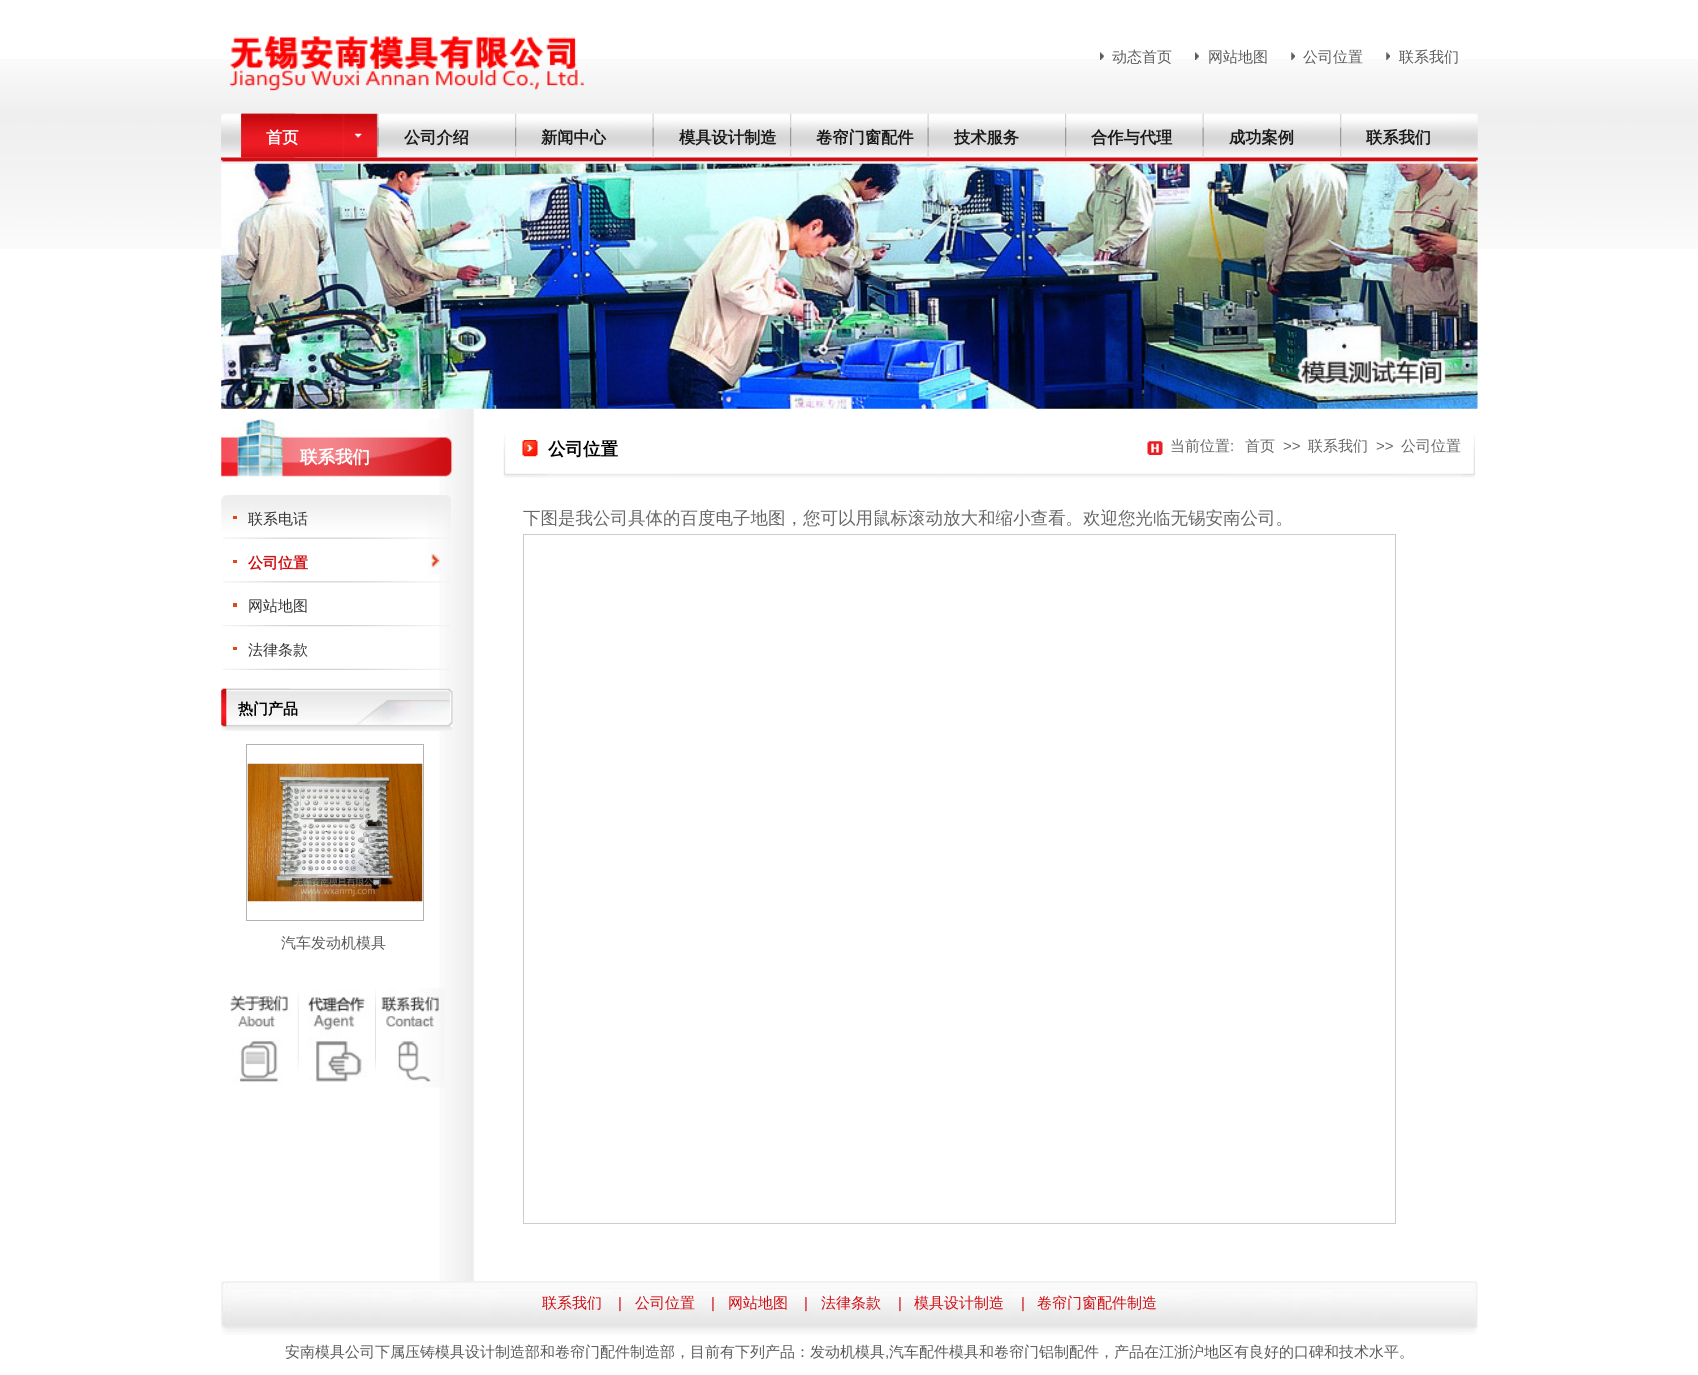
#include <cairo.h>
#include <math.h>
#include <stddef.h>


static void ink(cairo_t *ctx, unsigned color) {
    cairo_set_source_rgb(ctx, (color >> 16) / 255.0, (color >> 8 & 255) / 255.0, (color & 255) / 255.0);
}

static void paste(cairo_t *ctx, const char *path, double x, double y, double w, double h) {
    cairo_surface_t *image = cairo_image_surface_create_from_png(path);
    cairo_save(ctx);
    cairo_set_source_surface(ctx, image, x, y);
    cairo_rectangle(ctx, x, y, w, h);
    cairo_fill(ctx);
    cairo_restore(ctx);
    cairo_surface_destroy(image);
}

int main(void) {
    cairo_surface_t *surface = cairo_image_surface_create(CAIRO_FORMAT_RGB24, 1698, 1375);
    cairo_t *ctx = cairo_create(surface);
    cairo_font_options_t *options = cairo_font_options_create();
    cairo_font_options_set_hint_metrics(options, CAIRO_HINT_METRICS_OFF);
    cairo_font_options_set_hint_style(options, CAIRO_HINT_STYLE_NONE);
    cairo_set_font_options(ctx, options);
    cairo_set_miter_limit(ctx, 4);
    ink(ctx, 0xFFFFFF);
    cairo_paint(ctx);
    paste(ctx, "media/1.png", 0, 59, 1698, 190);
    paste(ctx, "media/2.png", 229, 36, 355, 55);
    paste(ctx, "media/3.png", 1100, 52, 4, 8);
    cairo_select_font_face(ctx, "WenQuanYi Zen Hei Medium", CAIRO_FONT_SLANT_NORMAL, CAIRO_FONT_WEIGHT_NORMAL);
    cairo_set_font_size(ctx, 15);
    ink(ctx, 0x5A5A5A);
    cairo_move_to(ctx, 1112, 62);
    cairo_show_text(ctx, "动态首页");
    paste(ctx, "media/4.png", 1195, 52, 4, 8);
    cairo_move_to(ctx, 1208, 62);
    cairo_show_text(ctx, "网站地图");
    paste(ctx, "media/5.png", 1291, 52, 4, 8);
    cairo_move_to(ctx, 1303, 62);
    cairo_show_text(ctx, "公司位置");
    paste(ctx, "media/5.png", 1386, 52, 4, 8);
    cairo_move_to(ctx, 1399, 62);
    cairo_show_text(ctx, "联系我们");
    paste(ctx, "media/6.png", 221, 113, 1257, 49);
    paste(ctx, "media/7.png", 1457, 114, 21, 48);
    paste(ctx, "media/8.png", 221, 114, 33, 48);
    paste(ctx, "media/9.png", 241, 113, 137, 45);
    paste(ctx, "media/10.png", 241, 113, 54, 45);
    cairo_select_font_face(ctx, "WenQuanYi Zen Hei", CAIRO_FONT_SLANT_NORMAL, CAIRO_FONT_WEIGHT_BOLD);
    cairo_set_font_size(ctx, 16.25);
    ink(ctx, 0xFFFFFF);
    cairo_move_to(ctx, 266, 143);
    cairo_show_text(ctx, "首页");
    paste(ctx, "media/11.png", 377, 113, 2, 45);
    ink(ctx, 0x191919);
    cairo_move_to(ctx, 404, 143);
    cairo_show_text(ctx, "公司介绍");
    paste(ctx, "media/12.png", 515, 113, 2, 45);
    cairo_move_to(ctx, 541, 143);
    cairo_show_text(ctx, "新闻中心");
    paste(ctx, "media/13.png", 652, 113, 2, 45);
    cairo_move_to(ctx, 679, 143);
    cairo_show_text(ctx, "模具设计制造");
    paste(ctx, "media/14.png", 790, 113, 2, 45);
    cairo_move_to(ctx, 816, 143);
    cairo_show_text(ctx, "卷帘门窗配件");
    paste(ctx, "media/15.png", 927, 113, 2, 45);
    cairo_move_to(ctx, 954, 143);
    cairo_show_text(ctx, "技术服务");
    paste(ctx, "media/12.png", 1065, 113, 2, 45);
    cairo_move_to(ctx, 1091, 143);
    cairo_show_text(ctx, "合作与代理");
    paste(ctx, "media/13.png", 1202, 113, 2, 45);
    cairo_move_to(ctx, 1229, 143);
    cairo_show_text(ctx, "成功案例");
    paste(ctx, "media/14.png", 1340, 113, 2, 45);
    cairo_move_to(ctx, 1366, 143);
    cairo_show_text(ctx, "联系我们");
    paste(ctx, "media/17.png", 439, 408, 35, 874);
    paste(ctx, "media/16.png", 221, 163, 1257, 246);
    paste(ctx, "media/18.png", 221, 418, 232, 59);
    cairo_set_font_size(ctx, 17.5);
    ink(ctx, 0xFFFFFF);
    cairo_move_to(ctx, 300, 463);
    cairo_show_text(ctx, "联系我们");
    paste(ctx, "media/19.png", 221, 495, 230, 80);
    paste(ctx, "media/20.png", 223, 537, 228, 2);
    ink(ctx, 0xDF4919);
    cairo_rectangle(ctx, 233, 516, 4, 3);
    cairo_fill(ctx);
    cairo_select_font_face(ctx, "WenQuanYi Zen Hei Medium", CAIRO_FONT_SLANT_NORMAL, CAIRO_FONT_WEIGHT_NORMAL);
    cairo_set_font_size(ctx, 15);
    ink(ctx, 0x333333);
    cairo_move_to(ctx, 248, 524);
    cairo_show_text(ctx, "联系电话");
    paste(ctx, "media/21.png", 223, 581, 228, 2);
    ink(ctx, 0xDF4919);
    cairo_rectangle(ctx, 233, 560, 4, 3);
    cairo_fill(ctx);
    paste(ctx, "media/22.png", 431, 553, 9, 15);
    cairo_select_font_face(ctx, "WenQuanYi Zen Hei", CAIRO_FONT_SLANT_NORMAL, CAIRO_FONT_WEIGHT_BOLD);
    ink(ctx, 0xCF0E13);
    cairo_move_to(ctx, 248, 568);
    cairo_show_text(ctx, "公司位置");
    paste(ctx, "media/23.png", 222, 625, 229, 2);
    ink(ctx, 0xDF4919);
    cairo_rectangle(ctx, 233, 603, 4, 4);
    cairo_fill(ctx);
    cairo_select_font_face(ctx, "WenQuanYi Zen Hei Medium", CAIRO_FONT_SLANT_NORMAL, CAIRO_FONT_WEIGHT_NORMAL);
    ink(ctx, 0x333333);
    cairo_move_to(ctx, 248, 611);
    cairo_show_text(ctx, "网站地图");
    paste(ctx, "media/24.png", 222, 668, 229, 2);
    ink(ctx, 0xDF4919);
    cairo_rectangle(ctx, 233, 647, 4, 3);
    cairo_fill(ctx);
    ink(ctx, 0x333333);
    cairo_move_to(ctx, 248, 655);
    cairo_show_text(ctx, "法律条款");
    paste(ctx, "media/25.png", 221, 688, 232, 43);
    paste(ctx, "media/26.png", 221, 688, 69, 43);
    cairo_select_font_face(ctx, "WenQuanYi Zen Hei", CAIRO_FONT_SLANT_NORMAL, CAIRO_FONT_WEIGHT_BOLD);
    ink(ctx, 0x000000);
    cairo_move_to(ctx, 238, 714);
    cairo_show_text(ctx, "热门产品");
    cairo_rectangle(ctx, 246.5, 744.5, 177, 176);
    ink(ctx, 0xB3B3B3);
    cairo_set_line_width(ctx, 1);
    cairo_stroke(ctx);
    paste(ctx, "media/27.png", 247, 763, 176, 139);
    cairo_select_font_face(ctx, "WenQuanYi Zen Hei Medium", CAIRO_FONT_SLANT_NORMAL, CAIRO_FONT_WEIGHT_NORMAL);
    ink(ctx, 0x5A5A5A);
    cairo_move_to(ctx, 281, 948);
    cairo_show_text(ctx, "汽车发动机模具");
    paste(ctx, "media/28.png", 229, 993, 70, 93);
    paste(ctx, "media/29.png", 308, 989, 68, 93);
    paste(ctx, "media/30.png", 381, 988, 64, 100);
    paste(ctx, "media/31.png", 503, 434, 972, 44);
    paste(ctx, "media/32.png", 522, 440, 16, 17);
    cairo_select_font_face(ctx, "WenQuanYi Zen Hei", CAIRO_FONT_SLANT_NORMAL, CAIRO_FONT_WEIGHT_BOLD);
    cairo_set_font_size(ctx, 17.5);
    ink(ctx, 0x000000);
    cairo_move_to(ctx, 548, 455);
    cairo_show_text(ctx, "公司位置");
    paste(ctx, "media/33.png", 1147, 441, 16, 14);
    cairo_select_font_face(ctx, "WenQuanYi Zen Hei Medium", CAIRO_FONT_SLANT_NORMAL, CAIRO_FONT_WEIGHT_NORMAL);
    cairo_set_font_size(ctx, 15);
    ink(ctx, 0x666666);
    cairo_move_to(ctx, 1170, 451);
    cairo_show_text(ctx, "当前位置");
    cairo_select_font_face(ctx, "Liberation Sans", CAIRO_FONT_SLANT_NORMAL, CAIRO_FONT_WEIGHT_NORMAL);
    cairo_move_to(ctx, 1230, 451);
    cairo_show_text(ctx, ":");
    cairo_select_font_face(ctx, "WenQuanYi Zen Hei Medium", CAIRO_FONT_SLANT_NORMAL, CAIRO_FONT_WEIGHT_NORMAL);
    cairo_move_to(ctx, 1245, 451);
    cairo_show_text(ctx, "首页");
    cairo_select_font_face(ctx, "Liberation Sans", CAIRO_FONT_SLANT_NORMAL, CAIRO_FONT_WEIGHT_NORMAL);
    cairo_move_to(ctx, 1283, 451);
    cairo_show_text(ctx, ">>");
    cairo_select_font_face(ctx, "WenQuanYi Zen Hei Medium", CAIRO_FONT_SLANT_NORMAL, CAIRO_FONT_WEIGHT_NORMAL);
    cairo_move_to(ctx, 1308, 451);
    cairo_show_text(ctx, "联系我们");
    cairo_select_font_face(ctx, "Liberation Sans", CAIRO_FONT_SLANT_NORMAL, CAIRO_FONT_WEIGHT_NORMAL);
    cairo_move_to(ctx, 1376, 451);
    cairo_show_text(ctx, ">>");
    cairo_select_font_face(ctx, "WenQuanYi Zen Hei Medium", CAIRO_FONT_SLANT_NORMAL, CAIRO_FONT_WEIGHT_NORMAL);
    cairo_move_to(ctx, 1401, 451);
    cairo_show_text(ctx, "公司位置");
    cairo_set_font_size(ctx, 17.5);
    cairo_move_to(ctx, 523, 524);
    cairo_show_text(ctx, "下图是我公司具体的百度电子地图，您可以用鼠标滚动放大和缩小查看。欢迎您光临无锡安南公司。");
    cairo_rectangle(ctx, 523.5, 534.5, 872, 689);
    ink(ctx, 0xCCCCCC);
    cairo_stroke(ctx);
    paste(ctx, "media/34.png", 221, 1281, 1257, 54);
    cairo_set_font_size(ctx, 15);
    ink(ctx, 0xCF0E13);
    cairo_move_to(ctx, 542, 1308);
    cairo_show_text(ctx, "联系我们");
    cairo_select_font_face(ctx, "Liberation Sans", CAIRO_FONT_SLANT_NORMAL, CAIRO_FONT_WEIGHT_NORMAL);
    cairo_move_to(ctx, 618, 1308);
    cairo_show_text(ctx, "|");
    cairo_select_font_face(ctx, "WenQuanYi Zen Hei Medium", CAIRO_FONT_SLANT_NORMAL, CAIRO_FONT_WEIGHT_NORMAL);
    cairo_move_to(ctx, 635, 1308);
    cairo_show_text(ctx, "公司位置");
    cairo_select_font_face(ctx, "Liberation Sans", CAIRO_FONT_SLANT_NORMAL, CAIRO_FONT_WEIGHT_NORMAL);
    cairo_move_to(ctx, 711, 1308);
    cairo_show_text(ctx, "|");
    cairo_select_font_face(ctx, "WenQuanYi Zen Hei Medium", CAIRO_FONT_SLANT_NORMAL, CAIRO_FONT_WEIGHT_NORMAL);
    cairo_move_to(ctx, 728, 1308);
    cairo_show_text(ctx, "网站地图");
    cairo_select_font_face(ctx, "Liberation Sans", CAIRO_FONT_SLANT_NORMAL, CAIRO_FONT_WEIGHT_NORMAL);
    cairo_move_to(ctx, 804, 1308);
    cairo_show_text(ctx, "|");
    cairo_select_font_face(ctx, "WenQuanYi Zen Hei Medium", CAIRO_FONT_SLANT_NORMAL, CAIRO_FONT_WEIGHT_NORMAL);
    cairo_move_to(ctx, 821, 1308);
    cairo_show_text(ctx, "法律条款");
    cairo_select_font_face(ctx, "Liberation Sans", CAIRO_FONT_SLANT_NORMAL, CAIRO_FONT_WEIGHT_NORMAL);
    cairo_move_to(ctx, 898, 1308);
    cairo_show_text(ctx, "|");
    cairo_select_font_face(ctx, "WenQuanYi Zen Hei Medium", CAIRO_FONT_SLANT_NORMAL, CAIRO_FONT_WEIGHT_NORMAL);
    cairo_move_to(ctx, 914, 1308);
    cairo_show_text(ctx, "模具设计制造");
    cairo_select_font_face(ctx, "Liberation Sans", CAIRO_FONT_SLANT_NORMAL, CAIRO_FONT_WEIGHT_NORMAL);
    cairo_move_to(ctx, 1021, 1308);
    cairo_show_text(ctx, "|");
    cairo_select_font_face(ctx, "WenQuanYi Zen Hei Medium", CAIRO_FONT_SLANT_NORMAL, CAIRO_FONT_WEIGHT_NORMAL);
    cairo_move_to(ctx, 1037, 1308);
    cairo_show_text(ctx, "卷帘门窗配件制造");
    ink(ctx, 0x5A5A5A);
    cairo_move_to(ctx, 285, 1357);
    cairo_show_text(ctx, "安南模具公司下属压铸模具设计制造部和卷帘门配件制造部，目前有下列产品：发动机模具");
    cairo_select_font_face(ctx, "Liberation Sans", CAIRO_FONT_SLANT_NORMAL, CAIRO_FONT_WEIGHT_NORMAL);
    cairo_move_to(ctx, 885, 1357);
    cairo_show_text(ctx, ",");
    cairo_select_font_face(ctx, "WenQuanYi Zen Hei Medium", CAIRO_FONT_SLANT_NORMAL, CAIRO_FONT_WEIGHT_NORMAL);
    cairo_move_to(ctx, 889, 1357);
    cairo_show_text(ctx, "汽车配件模具和卷帘门铝制配件，产品在江浙沪地区有良好的口碑和技术水平。");
    cairo_surface_write_to_png(surface, "image.png");
    cairo_font_options_destroy(options);
    cairo_destroy(ctx);
    cairo_surface_destroy(surface);
    return 0;
}
